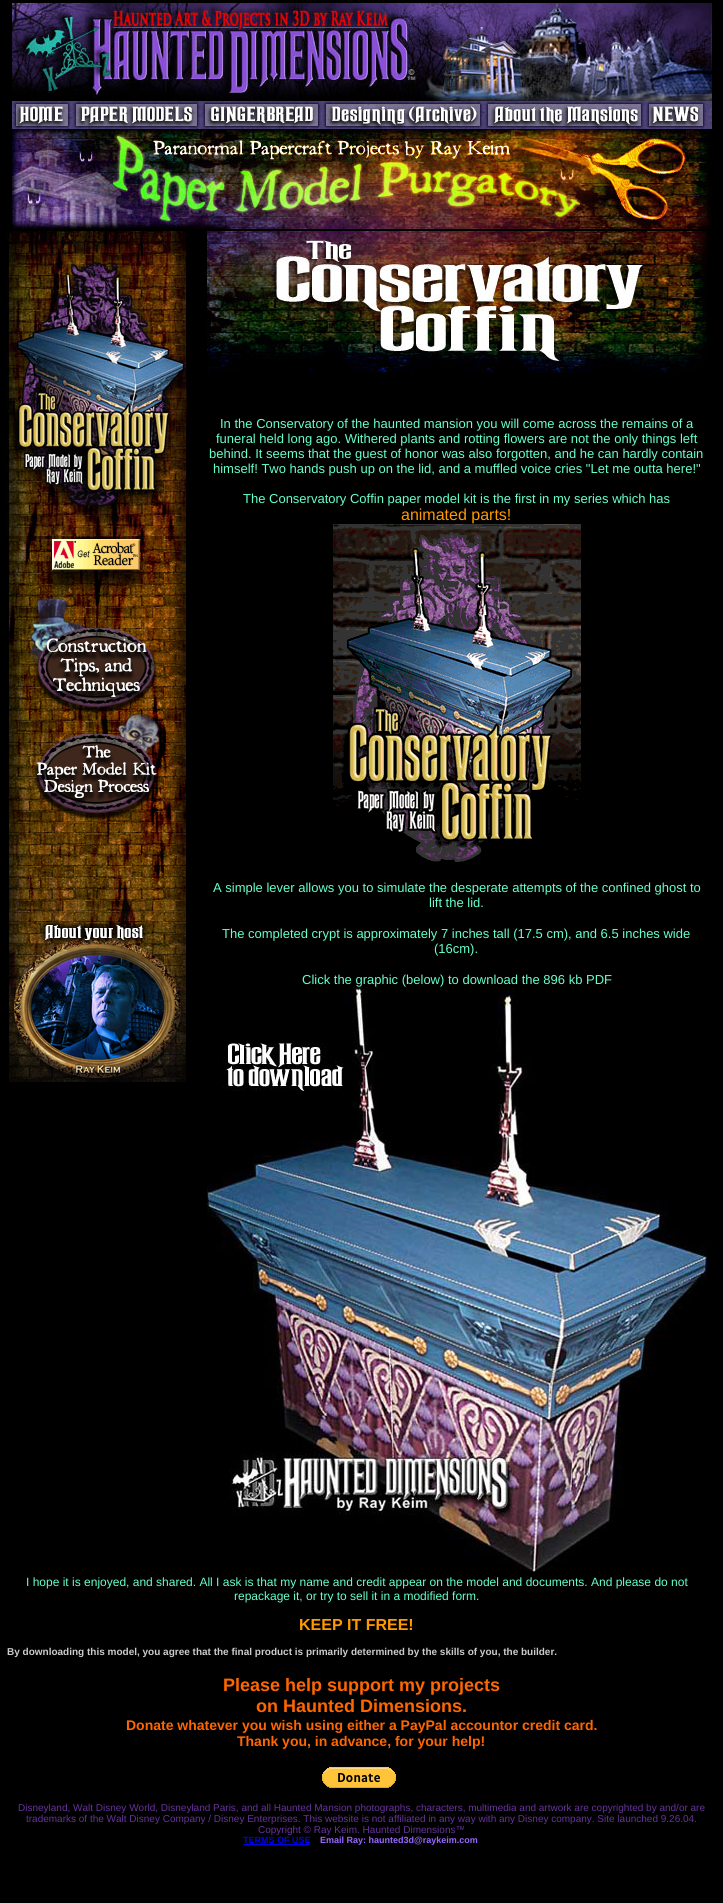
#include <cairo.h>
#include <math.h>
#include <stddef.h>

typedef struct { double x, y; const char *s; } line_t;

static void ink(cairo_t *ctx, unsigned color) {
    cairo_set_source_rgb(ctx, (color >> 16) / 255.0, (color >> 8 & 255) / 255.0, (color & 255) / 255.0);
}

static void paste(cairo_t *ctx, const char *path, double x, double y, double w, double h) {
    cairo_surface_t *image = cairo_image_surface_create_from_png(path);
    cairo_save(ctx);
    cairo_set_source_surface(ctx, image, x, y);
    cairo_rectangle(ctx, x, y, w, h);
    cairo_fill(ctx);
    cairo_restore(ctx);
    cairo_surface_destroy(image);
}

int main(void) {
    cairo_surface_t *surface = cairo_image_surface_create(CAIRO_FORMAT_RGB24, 723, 1903);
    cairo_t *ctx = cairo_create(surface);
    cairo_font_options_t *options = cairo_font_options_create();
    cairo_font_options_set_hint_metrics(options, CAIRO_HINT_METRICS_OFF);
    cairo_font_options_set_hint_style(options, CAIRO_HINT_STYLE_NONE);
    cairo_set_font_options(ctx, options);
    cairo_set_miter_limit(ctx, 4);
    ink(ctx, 0x000000);
    cairo_paint(ctx);
    paste(ctx, "media/1.png", 12, 3, 700, 98);
    paste(ctx, "media/2.png", 12, 101, 700, 28);
    paste(ctx, "media/3.png", 12, 129, 700, 100);
    paste(ctx, "media/4.png", 7, 231, 180, 306);
    paste(ctx, "media/5.png", 9, 537, 177, 545);
    paste(ctx, "media/6.png", 207, 231, 500, 142);
    cairo_select_font_face(ctx, "Liberation Sans", CAIRO_FONT_SLANT_NORMAL, CAIRO_FONT_WEIGHT_NORMAL);
    cairo_set_font_size(ctx, 13);
    ink(ctx, 0x66FFCC);
    {
        static const line_t items[] = {
            {220, 428, "In the Conservatory of the haunted mansion you will come across the remains of a"},
            {216, 443, "funeral held long ago. Withered plants and rotting flowers are not the only things left"},
            {209, 458, "behind. It seems that the guest of honor was also forgotten, and he can hardly contain"},
            {213, 473, "himself! Two hands push up on the lid, and a muffled voice cries \"Let me outta here!\""},
            {243, 503, "The Conservatory Coffin paper model kit is the first in my series which has"},
        };
        for (size_t i = 0; i < sizeof items / sizeof *items; i++) {
            cairo_move_to(ctx, items[i].x, items[i].y);
            cairo_show_text(ctx, items[i].s);
        }
    }
    cairo_set_font_size(ctx, 16);
    ink(ctx, 0xFF9900);
    cairo_move_to(ctx, 401, 520);
    cairo_show_text(ctx, "animated parts!");
    paste(ctx, "media/7.png", 333, 524, 248, 338);
    cairo_set_font_size(ctx, 13);
    ink(ctx, 0x66FFCC);
    {
        static const line_t items[] = {
            {213, 892, "A simple lever allows you to simulate the desperate attempts of the confined ghost to"},
            {429, 907, "lift the lid."},
            {222, 938, "The completed crypt is approximately 7 inches tall (17.5 cm), and 6.5 inches wide"},
            {434, 953, "(16cm)."},
            {302, 984, "Click the graphic (below) to download the 896 kb PDF"},
        };
        for (size_t i = 0; i < sizeof items / sizeof *items; i++) {
            cairo_move_to(ctx, items[i].x, items[i].y);
            cairo_show_text(ctx, items[i].s);
        }
    }
    paste(ctx, "media/8.png", 207, 987, 500, 585);
    cairo_set_font_size(ctx, 12);
    cairo_move_to(ctx, 26, 1586);
    cairo_show_text(ctx, "I hope it is enjoyed, and shared. All I ask is that my name and credit appear on the model and documents. And please do not");
    cairo_move_to(ctx, 234, 1600);
    cairo_show_text(ctx, "repackage it, or try to sell it in a modified form.");
    cairo_select_font_face(ctx, "Liberation Sans", CAIRO_FONT_SLANT_NORMAL, CAIRO_FONT_WEIGHT_BOLD);
    cairo_set_font_size(ctx, 16);
    ink(ctx, 0xFF9900);
    cairo_move_to(ctx, 299, 1630);
    cairo_show_text(ctx, "KEEP IT FREE!");
    cairo_set_font_size(ctx, 10);
    ink(ctx, 0xCCCCCC);
    cairo_move_to(ctx, 7, 1655);
    cairo_show_text(ctx, "By downloading this model, you agree that the final product is primarily determined by the skills of you, the builder.");
    cairo_set_font_size(ctx, 18);
    ink(ctx, 0xFF6600);
    cairo_move_to(ctx, 223, 1691);
    cairo_show_text(ctx, "Please help support my projects");
    cairo_move_to(ctx, 256, 1712);
    cairo_show_text(ctx, "on Haunted Dimensions.");
    cairo_set_font_size(ctx, 14);
    cairo_move_to(ctx, 126, 1730);
    cairo_show_text(ctx, "Donate whatever you wish using either a PayPal accountor credit card.");
    cairo_move_to(ctx, 237, 1746);
    cairo_show_text(ctx, "Thank you, in advance, for your help!");
    paste(ctx, "media/9.png", 322, 1767, 74, 21);
    cairo_select_font_face(ctx, "Liberation Sans", CAIRO_FONT_SLANT_NORMAL, CAIRO_FONT_WEIGHT_NORMAL);
    cairo_set_font_size(ctx, 10);
    ink(ctx, 0x663399);
    {
        static const line_t items[] = {
            {18, 1811, "Disneyland, Walt Disney World, Disneyland Paris, and all Haunted Mansion photographs, characters, multimedia and artwork are copyrighted by and/or are"},
            {26, 1822, "trademarks of the Walt Disney Company / Disney Enterprises. This website is not affiliated in any way with any Disney company. Site launched 9.26.04."},
            {258, 1833, "Copyright © Ray Keim. Haunted Dimensions™"},
        };
        for (size_t i = 0; i < sizeof items / sizeof *items; i++) {
            cairo_move_to(ctx, items[i].x, items[i].y);
            cairo_show_text(ctx, items[i].s);
        }
    }
    cairo_select_font_face(ctx, "Liberation Sans", CAIRO_FONT_SLANT_NORMAL, CAIRO_FONT_WEIGHT_BOLD);
    cairo_set_font_size(ctx, 9);
    ink(ctx, 0x0000EE);
    cairo_move_to(ctx, 243, 1843);
    cairo_show_text(ctx, "TERMS OF USE");
    cairo_rectangle(ctx, 243, 1844, 67, 1);
    cairo_fill(ctx);
    ink(ctx, 0x9966FF);
    cairo_move_to(ctx, 320, 1843);
    cairo_show_text(ctx, "Email Ray: haunted3d@raykeim.com");
    cairo_surface_write_to_png(surface, "image.png");
    cairo_font_options_destroy(options);
    cairo_destroy(ctx);
    cairo_surface_destroy(surface);
    return 0;
}
